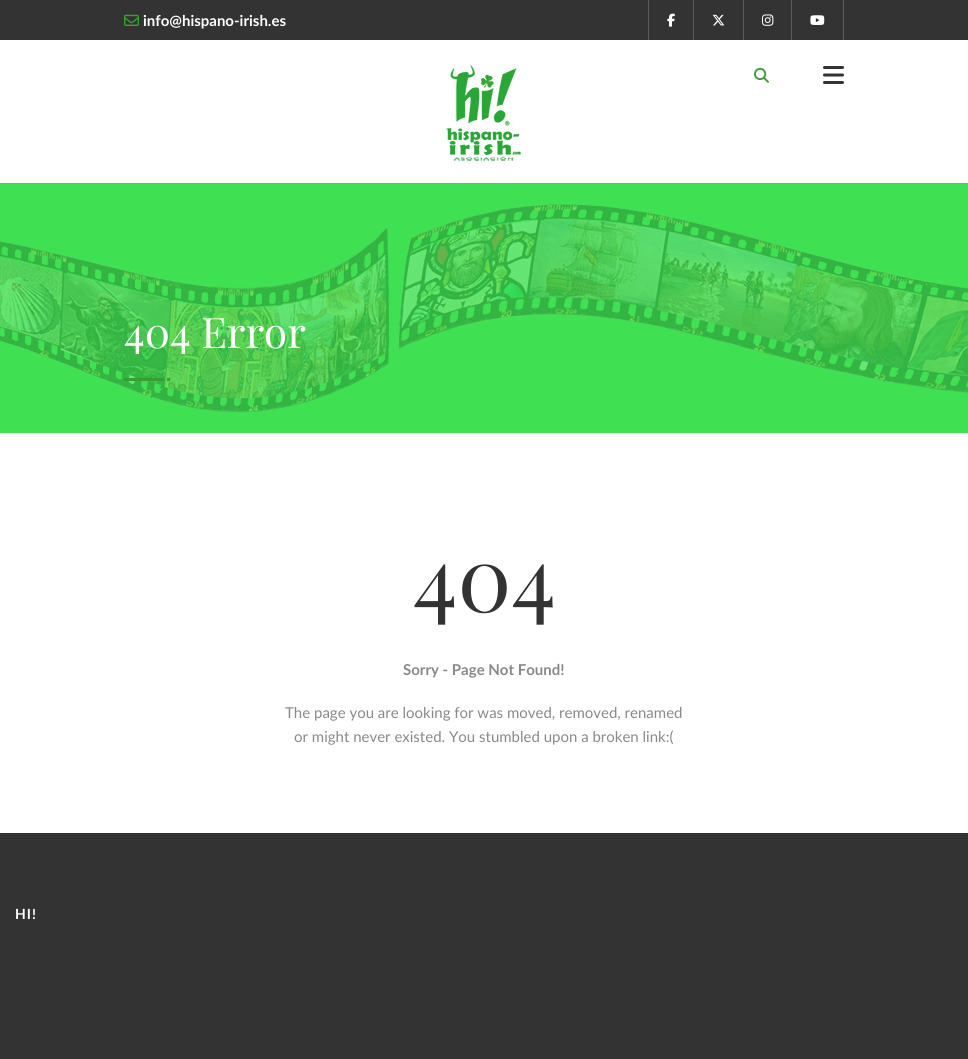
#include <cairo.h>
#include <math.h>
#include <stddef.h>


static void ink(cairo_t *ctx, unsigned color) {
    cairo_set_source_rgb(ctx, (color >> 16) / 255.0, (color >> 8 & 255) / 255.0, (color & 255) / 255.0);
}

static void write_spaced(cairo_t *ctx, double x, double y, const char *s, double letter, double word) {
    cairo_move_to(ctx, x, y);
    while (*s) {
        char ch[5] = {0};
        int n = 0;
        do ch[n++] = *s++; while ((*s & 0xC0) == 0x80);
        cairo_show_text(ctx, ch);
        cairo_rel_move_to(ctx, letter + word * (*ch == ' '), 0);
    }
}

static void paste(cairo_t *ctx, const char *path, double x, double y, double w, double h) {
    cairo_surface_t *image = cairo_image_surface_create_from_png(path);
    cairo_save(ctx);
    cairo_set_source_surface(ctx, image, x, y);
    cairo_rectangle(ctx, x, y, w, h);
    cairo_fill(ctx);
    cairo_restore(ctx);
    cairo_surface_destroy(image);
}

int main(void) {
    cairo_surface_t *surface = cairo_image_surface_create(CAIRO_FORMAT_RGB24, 968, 1059);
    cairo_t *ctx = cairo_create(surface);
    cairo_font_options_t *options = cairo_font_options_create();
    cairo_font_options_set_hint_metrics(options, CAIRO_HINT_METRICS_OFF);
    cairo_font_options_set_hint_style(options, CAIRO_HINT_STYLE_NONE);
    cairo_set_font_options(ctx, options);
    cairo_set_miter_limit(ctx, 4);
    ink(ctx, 0xFFFFFF);
    cairo_paint(ctx);
    ink(ctx, 0x333333);
    cairo_rectangle(ctx, 0, 0, 968, 40);
    cairo_fill(ctx);
    paste(ctx, "media/1.png", 124, 14, 15, 12);
    cairo_select_font_face(ctx, "Lato", CAIRO_FONT_SLANT_NORMAL, CAIRO_FONT_WEIGHT_BOLD);
    cairo_set_font_size(ctx, 15);
    ink(ctx, 0xFFFFFF);
    cairo_move_to(ctx, 143, 26);
    cairo_show_text(ctx, "info@hispano-irish.es");
    ink(ctx, 0x5C5C5C);
    cairo_rectangle(ctx, 648, 0, 1, 40);
    cairo_fill(ctx);
    cairo_rectangle(ctx, 693, 0, 1, 40);
    cairo_fill(ctx);
    paste(ctx, "media/2.png", 667, 13, 8, 14);
    cairo_rectangle(ctx, 743, 0, 1, 40);
    cairo_fill(ctx);
    paste(ctx, "media/3.png", 712, 14, 13, 12);
    cairo_rectangle(ctx, 791, 0, 1, 40);
    cairo_fill(ctx);
    paste(ctx, "media/4.png", 762, 14, 12, 12);
    cairo_rectangle(ctx, 843, 0, 1, 40);
    cairo_fill(ctx);
    paste(ctx, "media/5.png", 810, 15, 15, 10);
    ink(ctx, 0x3CD54E);
    cairo_rectangle(ctx, 0, 183, 968, 1);
    cairo_fill(ctx);
    paste(ctx, "media/6.png", 446, 65, 75, 96);
    paste(ctx, "media/7.png", 754, 67, 15, 16);
    paste(ctx, "media/8.png", 823, 66, 21, 18);
    paste(ctx, "media/9.png", 0, 184, 968, 249);
    cairo_select_font_face(ctx, "Playfair Display", CAIRO_FONT_SLANT_NORMAL, CAIRO_FONT_WEIGHT_NORMAL);
    cairo_set_font_size(ctx, 42);
    ink(ctx, 0xFFFFFF);
    cairo_move_to(ctx, 124, 348);
    cairo_show_text(ctx, "404 Error");
    ink(ctx, 0x3C9B35);
    cairo_rectangle(ctx, 124, 378, 40, 3);
    cairo_fill(ctx);
    cairo_rectangle(ctx, 167, 378, 3, 3);
    cairo_fill(ctx);
    cairo_set_font_size(ctx, 90);
    ink(ctx, 0x333333);
    cairo_move_to(ctx, 413, 612);
    cairo_show_text(ctx, "404");
    cairo_select_font_face(ctx, "Lato", CAIRO_FONT_SLANT_NORMAL, CAIRO_FONT_WEIGHT_BOLD);
    cairo_set_font_size(ctx, 15);
    ink(ctx, 0x898989);
    cairo_move_to(ctx, 403, 675);
    cairo_show_text(ctx, "Sorry - Page Not Found!");
    cairo_select_font_face(ctx, "Lato", CAIRO_FONT_SLANT_NORMAL, CAIRO_FONT_WEIGHT_NORMAL);
    cairo_move_to(ctx, 285, 718);
    cairo_show_text(ctx, "The page you are looking for was moved, removed, renamed");
    cairo_move_to(ctx, 294, 742);
    cairo_show_text(ctx, "or might never existed. You stumbled upon a broken link:(");
    ink(ctx, 0x333333);
    cairo_rectangle(ctx, 0, 833, 968, 226);
    cairo_fill(ctx);
    cairo_select_font_face(ctx, "Lato", CAIRO_FONT_SLANT_NORMAL, CAIRO_FONT_WEIGHT_BOLD);
    cairo_set_font_size(ctx, 14);
    ink(ctx, 0xFFFFFF);
    write_spaced(ctx, 15, 919, "HI!", 1, 0);
    cairo_surface_write_to_png(surface, "image.png");
    cairo_font_options_destroy(options);
    cairo_destroy(ctx);
    cairo_surface_destroy(surface);
    return 0;
}
